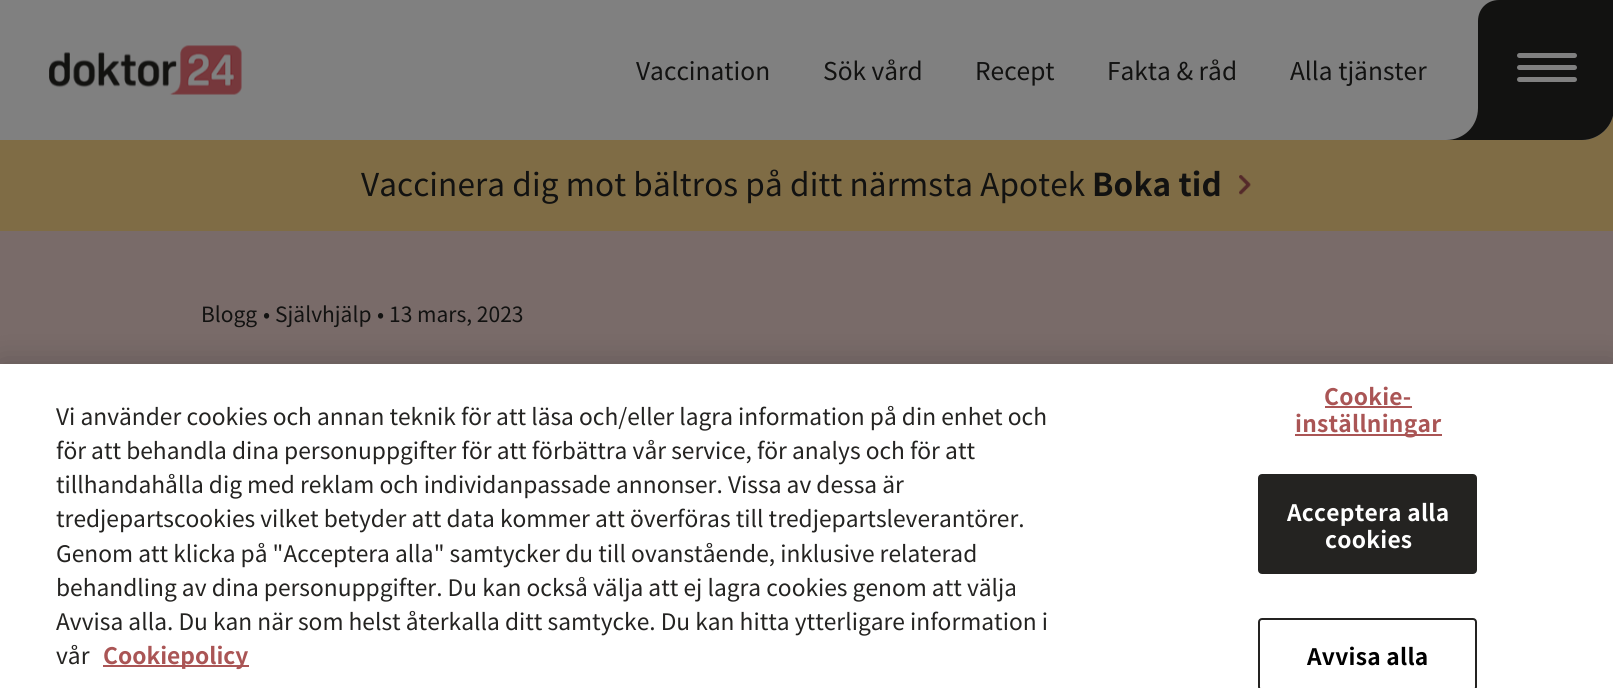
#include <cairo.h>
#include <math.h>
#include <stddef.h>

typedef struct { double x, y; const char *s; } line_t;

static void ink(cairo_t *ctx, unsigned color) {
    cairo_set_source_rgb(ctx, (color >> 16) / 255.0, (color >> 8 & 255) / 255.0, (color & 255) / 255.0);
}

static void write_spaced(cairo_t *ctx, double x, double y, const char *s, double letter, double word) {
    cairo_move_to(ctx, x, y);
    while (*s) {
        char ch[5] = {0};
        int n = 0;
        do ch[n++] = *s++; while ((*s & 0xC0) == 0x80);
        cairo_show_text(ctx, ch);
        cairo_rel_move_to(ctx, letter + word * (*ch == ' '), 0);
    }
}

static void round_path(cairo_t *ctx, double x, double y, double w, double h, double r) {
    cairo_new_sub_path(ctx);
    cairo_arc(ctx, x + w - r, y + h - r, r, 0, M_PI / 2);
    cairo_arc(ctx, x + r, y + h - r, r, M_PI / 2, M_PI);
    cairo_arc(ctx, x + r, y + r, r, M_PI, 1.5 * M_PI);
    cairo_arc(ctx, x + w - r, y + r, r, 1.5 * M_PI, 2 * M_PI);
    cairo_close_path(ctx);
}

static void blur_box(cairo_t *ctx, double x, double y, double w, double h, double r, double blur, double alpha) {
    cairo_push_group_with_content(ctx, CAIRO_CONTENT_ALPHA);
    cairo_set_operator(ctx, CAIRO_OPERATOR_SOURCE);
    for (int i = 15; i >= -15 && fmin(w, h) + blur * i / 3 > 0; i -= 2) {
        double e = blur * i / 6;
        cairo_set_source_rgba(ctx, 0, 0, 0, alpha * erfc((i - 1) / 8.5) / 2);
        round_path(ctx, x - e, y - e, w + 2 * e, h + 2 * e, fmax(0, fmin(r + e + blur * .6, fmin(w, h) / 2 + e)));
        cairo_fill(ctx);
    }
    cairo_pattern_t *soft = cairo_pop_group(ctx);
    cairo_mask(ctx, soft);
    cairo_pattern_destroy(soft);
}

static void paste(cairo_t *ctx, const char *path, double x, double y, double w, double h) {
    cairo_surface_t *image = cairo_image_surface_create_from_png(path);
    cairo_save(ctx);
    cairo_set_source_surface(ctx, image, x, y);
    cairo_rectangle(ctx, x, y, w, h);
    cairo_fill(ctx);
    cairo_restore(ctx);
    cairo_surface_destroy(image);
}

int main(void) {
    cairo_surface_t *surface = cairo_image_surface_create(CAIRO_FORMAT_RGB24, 1613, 688);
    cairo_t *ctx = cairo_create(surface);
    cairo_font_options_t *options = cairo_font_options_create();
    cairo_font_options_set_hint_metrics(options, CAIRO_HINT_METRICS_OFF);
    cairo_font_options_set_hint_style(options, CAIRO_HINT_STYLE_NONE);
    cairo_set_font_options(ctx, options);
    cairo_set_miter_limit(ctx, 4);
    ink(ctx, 0x796B69);
    cairo_paint(ctx);
    ink(ctx, 0x7F6C45);
    cairo_rectangle(ctx, 0, 115, 1613, 116);
    cairo_fill(ctx);
    ink(ctx, 0x808080);
    cairo_new_path(ctx);
    cairo_move_to(ctx, 0, 0);
    cairo_line_to(ctx, 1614, 0);
    cairo_line_to(ctx, 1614, 108);
    cairo_curve_to(ctx, 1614, 125.5, 1599.5, 140, 1582, 140);
    cairo_line_to(ctx, 0, 140);
    cairo_close_path(ctx);
    cairo_fill(ctx);
    paste(ctx, "media/1.png", 49, 45, 193, 50);
    cairo_select_font_face(ctx, "Noto Sans JP", CAIRO_FONT_SLANT_NORMAL, CAIRO_FONT_WEIGHT_NORMAL);
    cairo_set_font_size(ctx, 24.5);
    ink(ctx, 0x121211);
    {
        static const line_t items[] = {
            {636, 80, "Vaccination"},
            {823, 80, "Sök vård"},
            {975, 80, "Recept"},
            {1107, 80, "Fakta & råd"},
            {1290, 80, "Alla tjänster"},
        };
        for (size_t i = 0; i < sizeof items / sizeof *items; i++) {
            cairo_move_to(ctx, items[i].x, items[i].y);
            cairo_show_text(ctx, items[i].s);
        }
    }
    cairo_set_fill_rule(ctx, CAIRO_FILL_RULE_EVEN_ODD);
    cairo_new_path(ctx);
    cairo_move_to(ctx, 1499, 0);
    cairo_line_to(ctx, 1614, 0);
    cairo_line_to(ctx, 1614, 108);
    cairo_curve_to(ctx, 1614, 126, 1599, 140, 1582, 140);
    cairo_line_to(ctx, 1438, 140);
    cairo_line_to(ctx, 1446, 140);
    cairo_curve_to(ctx, 1464, 140, 1478, 126, 1478, 108);
    cairo_line_to(ctx, 1478, 21);
    cairo_curve_to(ctx, 1478, 9, 1487, 0, 1499, 0);
    cairo_close_path(ctx);
    cairo_fill(ctx);
    ink(ctx, 0x808080);
    round_path(ctx, 1517, 65, 60, 5, 2.5);
    cairo_fill(ctx);
    round_path(ctx, 1517, 53, 60, 5, 2.5);
    cairo_fill(ctx);
    round_path(ctx, 1517, 77, 60, 5, 2.5);
    cairo_fill(ctx);
    cairo_set_font_size(ctx, 31.5);
    ink(ctx, 0x121211);
    write_spaced(ctx, 361, 196, "Vaccinera dig mot bältros på ditt närmsta Apotek", 0.1, 0);
    cairo_select_font_face(ctx, "Noto Sans JP", CAIRO_FONT_SLANT_NORMAL, CAIRO_FONT_WEIGHT_BOLD);
    write_spaced(ctx, 1092, 196, "Boka tid", 0.1, 0);
    paste(ctx, "media/2.png", 1239, 175, 12, 20);
    cairo_select_font_face(ctx, "Noto Sans JP", CAIRO_FONT_SLANT_NORMAL, CAIRO_FONT_WEIGHT_NORMAL);
    cairo_set_font_size(ctx, 21);
    {
        static const line_t items[] = {
            {201, 322, "Blogg"},
            {263, 322, "•"},
            {275, 322, "Självhjälp"},
            {377, 322, "•"},
            {389, 322, "13 mars, 2023"},
        };
        for (size_t i = 0; i < sizeof items / sizeof *items; i++) {
            cairo_move_to(ctx, items[i].x, items[i].y);
            cairo_show_text(ctx, items[i].s);
        }
    }
    ink(ctx, 0x000000);
    blur_box(ctx, 0, 364, 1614, 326, 0, 16, 0.2);
    ink(ctx, 0xFFFFFF);
    cairo_rectangle(ctx, 0, 364, 1613, 324);
    cairo_fill(ctx);
    cairo_set_font_size(ctx, 22.75);
    ink(ctx, 0x242321);
    {
        static const line_t items[] = {
            {56, 425, "Vi använder cookies och annan teknik för att läsa och/eller lagra information på din enhet och"},
            {56, 459, "för att behandla dina personuppgifter för att förbättra vår service, för analys och för att"},
            {56, 493, "tillhandahålla dig med reklam och individanpassade annonser."},
            {728, 493, "Vissa av dessa är"},
            {56, 527, "tredjepartscookies vilket betyder att data kommer att överföras till tredjepartsleverantörer."},
            {56, 562, "Genom att klicka på \"Acceptera alla\" samtycker du till ovanstående, inklusive relaterad"},
            {56, 596, "behandling av dina personuppgifter. Du kan också välja att ej lagra cookies genom att välja"},
            {56, 630, "Avvisa alla. Du kan när som helst återkalla ditt samtycke. Du kan hitta ytterligare information i"},
            {56, 664, "vår"},
        };
        for (size_t i = 0; i < sizeof items / sizeof *items; i++) {
            cairo_move_to(ctx, items[i].x, items[i].y);
            cairo_show_text(ctx, items[i].s);
        }
    }
    ink(ctx, 0xAA5555);
    cairo_rectangle(ctx, 103, 665, 146, 2);
    cairo_fill(ctx);
    cairo_select_font_face(ctx, "Noto Sans JP", CAIRO_FONT_SLANT_NORMAL, CAIRO_FONT_WEIGHT_BOLD);
    cairo_move_to(ctx, 103, 664);
    cairo_show_text(ctx, "Cookiepolicy");
    write_spaced(ctx, 1324, 405, "Cookie-", 0.25, 0);
    cairo_rectangle(ctx, 1325, 406, 87, 2);
    cairo_fill(ctx);
    cairo_rectangle(ctx, 1295, 434, 147, 2);
    cairo_fill(ctx);
    write_spaced(ctx, 1295, 432, "inställningar", 0.25, 0);
    ink(ctx, 0x242321);
    round_path(ctx, 1259, 475, 217, 98, 3);
    cairo_fill_preserve(ctx);
    cairo_stroke(ctx);
    ink(ctx, 0xFFFFFF);
    write_spaced(ctx, 1287, 521, "Acceptera alla", 0.25, 0);
    write_spaced(ctx, 1325, 548, "cookies", 0.25, 0);
    round_path(ctx, 1259, 619, 217, 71, 3);
    ink(ctx, 0x242321);
    cairo_stroke(ctx);
    ink(ctx, 0x000000);
    write_spaced(ctx, 1307, 665, "Avvisa alla", 0.25, 0);
    cairo_surface_write_to_png(surface, "image.png");
    cairo_font_options_destroy(options);
    cairo_destroy(ctx);
    cairo_surface_destroy(surface);
    return 0;
}
